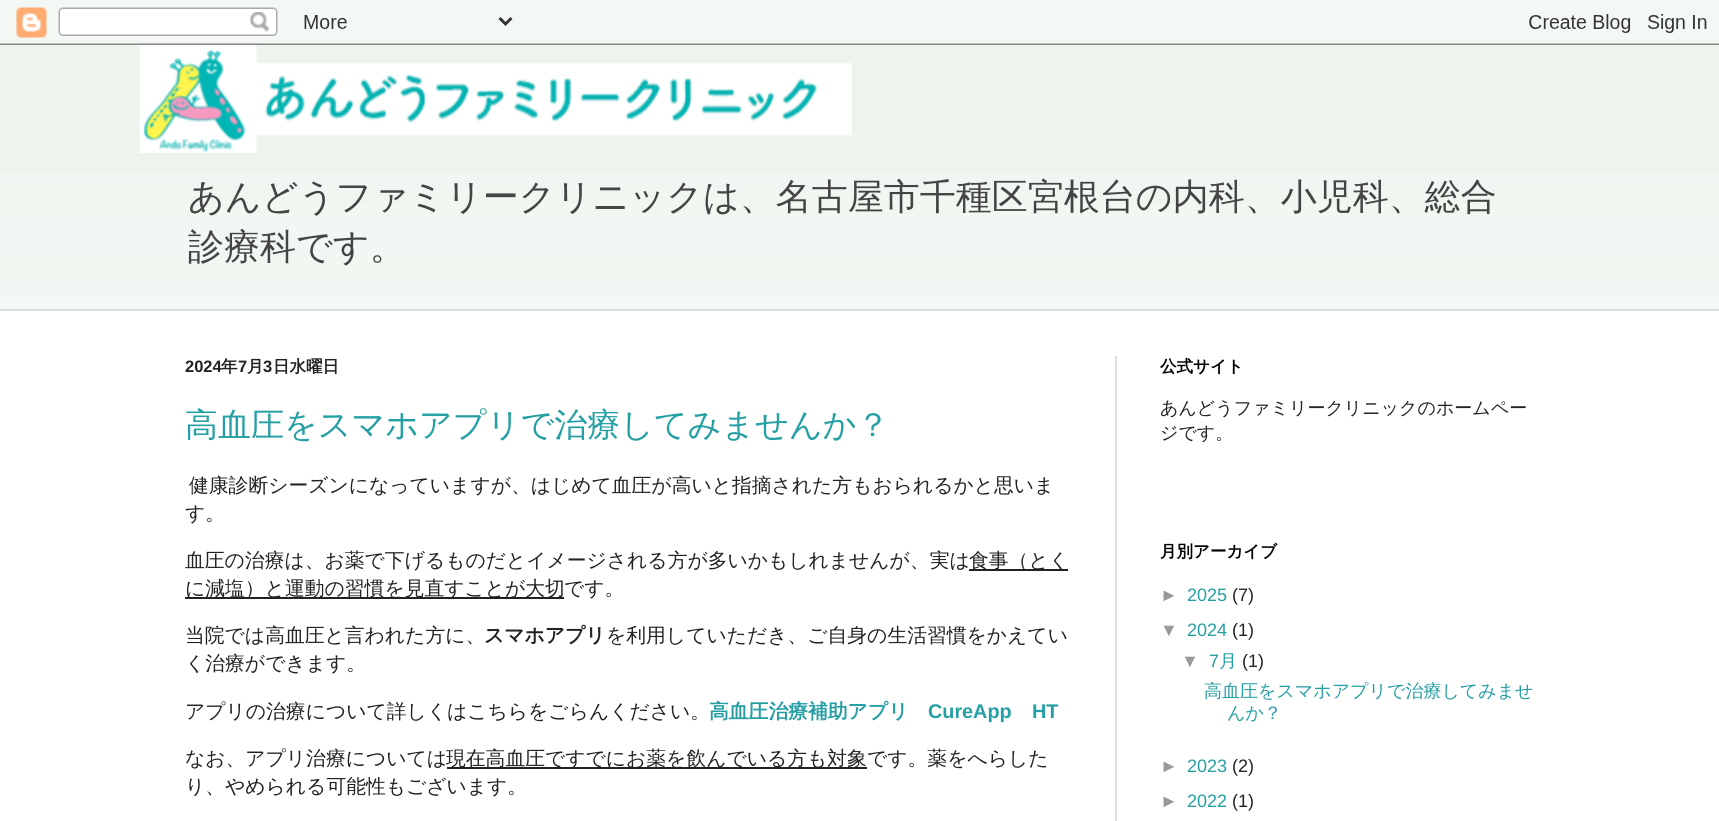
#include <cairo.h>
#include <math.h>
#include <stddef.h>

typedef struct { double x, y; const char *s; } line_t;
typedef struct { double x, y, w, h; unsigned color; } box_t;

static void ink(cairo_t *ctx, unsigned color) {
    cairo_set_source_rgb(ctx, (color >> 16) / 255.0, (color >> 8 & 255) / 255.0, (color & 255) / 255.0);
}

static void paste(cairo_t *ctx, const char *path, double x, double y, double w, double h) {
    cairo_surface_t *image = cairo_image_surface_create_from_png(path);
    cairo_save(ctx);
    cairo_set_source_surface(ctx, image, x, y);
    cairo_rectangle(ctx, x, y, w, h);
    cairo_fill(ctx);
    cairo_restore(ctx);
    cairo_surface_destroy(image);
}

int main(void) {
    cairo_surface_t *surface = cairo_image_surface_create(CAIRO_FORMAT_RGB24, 1719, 821);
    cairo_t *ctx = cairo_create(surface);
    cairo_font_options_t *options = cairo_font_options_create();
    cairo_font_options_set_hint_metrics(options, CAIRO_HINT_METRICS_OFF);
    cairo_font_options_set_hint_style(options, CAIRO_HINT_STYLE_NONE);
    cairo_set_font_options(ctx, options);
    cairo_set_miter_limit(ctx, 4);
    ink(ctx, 0xECF4ED);
    cairo_paint(ctx);
    paste(ctx, "media/1.png", 0, 0, 1719, 45);
    paste(ctx, "media/2.png", 0, 174, 1719, 135);
    paste(ctx, "media/3.png", 139, 45, 713, 108);
    cairo_select_font_face(ctx, "WenQuanYi Zen Hei Medium", CAIRO_FONT_SLANT_NORMAL, CAIRO_FONT_WEIGHT_NORMAL);
    cairo_set_font_size(ctx, 36);
    ink(ctx, 0x444444);
    cairo_move_to(ctx, 188, 209);
    cairo_show_text(ctx, "あんどうファミリークリニックは、名古屋市千種区宮根台の内科、小児科、総合");
    cairo_move_to(ctx, 188, 259);
    cairo_show_text(ctx, "診療科です。");
    {
        static const box_t items[] = {
            {0, 311, 1719, 510, 0xFFFFFF},
            {0, 309, 1719, 2, 0xDDDDDD},
            {1115, 356, 2, 465, 0xDDDDDD},
        };
        for (size_t i = 0; i < sizeof items / sizeof *items; i++) {
            ink(ctx, items[i].color);
            cairo_rectangle(ctx, items[i].x, items[i].y, items[i].w, items[i].h);
            cairo_fill(ctx);
        }
    }
    cairo_select_font_face(ctx, "Liberation Sans", CAIRO_FONT_SLANT_NORMAL, CAIRO_FONT_WEIGHT_BOLD);
    cairo_set_font_size(ctx, 16.5);
    ink(ctx, 0x222222);
    cairo_move_to(ctx, 185, 372);
    cairo_show_text(ctx, "2024");
    cairo_select_font_face(ctx, "WenQuanYi Zen Hei", CAIRO_FONT_SLANT_NORMAL, CAIRO_FONT_WEIGHT_BOLD);
    cairo_move_to(ctx, 221, 372);
    cairo_show_text(ctx, "年");
    cairo_select_font_face(ctx, "Liberation Sans", CAIRO_FONT_SLANT_NORMAL, CAIRO_FONT_WEIGHT_BOLD);
    cairo_move_to(ctx, 238, 372);
    cairo_show_text(ctx, "7");
    cairo_select_font_face(ctx, "WenQuanYi Zen Hei", CAIRO_FONT_SLANT_NORMAL, CAIRO_FONT_WEIGHT_BOLD);
    cairo_move_to(ctx, 247, 372);
    cairo_show_text(ctx, "月");
    cairo_select_font_face(ctx, "Liberation Sans", CAIRO_FONT_SLANT_NORMAL, CAIRO_FONT_WEIGHT_BOLD);
    cairo_move_to(ctx, 263, 372);
    cairo_show_text(ctx, "3");
    cairo_select_font_face(ctx, "WenQuanYi Zen Hei", CAIRO_FONT_SLANT_NORMAL, CAIRO_FONT_WEIGHT_BOLD);
    cairo_move_to(ctx, 273, 372);
    cairo_show_text(ctx, "日水曜日");
    cairo_select_font_face(ctx, "WenQuanYi Zen Hei Medium", CAIRO_FONT_SLANT_NORMAL, CAIRO_FONT_WEIGHT_NORMAL);
    cairo_set_font_size(ctx, 33);
    ink(ctx, 0x249FA3);
    cairo_move_to(ctx, 185, 436);
    cairo_show_text(ctx, "高血圧をスマホアプリで治療してみませんか？");
    cairo_set_font_size(ctx, 19.8);
    ink(ctx, 0x222222);
    {
        static const line_t items[] = {
            {189, 492, "健康診断シーズンになっていますが、はじめて血圧が高いと指摘された方もおられるかと思いま"},
            {185, 520, "す。"},
            {185, 567, "血圧の治療は、お薬で下げるものだとイメージされる方が多いかもしれませんが、実は"},
        };
        for (size_t i = 0; i < sizeof items / sizeof *items; i++) {
            cairo_move_to(ctx, items[i].x, items[i].y);
            cairo_show_text(ctx, items[i].s);
        }
    }
    cairo_rectangle(ctx, 969, 569, 99, 2);
    cairo_fill(ctx);
    cairo_move_to(ctx, 969, 567);
    cairo_show_text(ctx, "食事（とく");
    cairo_rectangle(ctx, 185, 597, 379, 2);
    cairo_fill(ctx);
    {
        static const line_t items[] = {
            {185, 595, "に減塩）と運動の習慣を見直すことが大切"},
            {564, 595, "です。"},
            {185, 642, "当院では高血圧と言われた方に、"},
        };
        for (size_t i = 0; i < sizeof items / sizeof *items; i++) {
            cairo_move_to(ctx, items[i].x, items[i].y);
            cairo_show_text(ctx, items[i].s);
        }
    }
    cairo_select_font_face(ctx, "WenQuanYi Zen Hei", CAIRO_FONT_SLANT_NORMAL, CAIRO_FONT_WEIGHT_BOLD);
    cairo_move_to(ctx, 484, 642);
    cairo_show_text(ctx, "スマホアプリ");
    cairo_select_font_face(ctx, "WenQuanYi Zen Hei Medium", CAIRO_FONT_SLANT_NORMAL, CAIRO_FONT_WEIGHT_NORMAL);
    {
        static const line_t items[] = {
            {606, 642, "を利用していただき、ご自身の生活習慣をかえてい"},
            {185, 670, "く治療ができます。"},
            {185, 718, "アプリの治療について詳しくはこちらをごらんください。"},
        };
        for (size_t i = 0; i < sizeof items / sizeof *items; i++) {
            cairo_move_to(ctx, items[i].x, items[i].y);
            cairo_show_text(ctx, items[i].s);
        }
    }
    cairo_select_font_face(ctx, "WenQuanYi Zen Hei", CAIRO_FONT_SLANT_NORMAL, CAIRO_FONT_WEIGHT_BOLD);
    ink(ctx, 0x249FA3);
    cairo_move_to(ctx, 709, 718);
    cairo_show_text(ctx, "高血圧治療補助アプリ");
    cairo_select_font_face(ctx, "Liberation Sans", CAIRO_FONT_SLANT_NORMAL, CAIRO_FONT_WEIGHT_BOLD);
    cairo_move_to(ctx, 928, 718);
    cairo_show_text(ctx, "CureApp");
    cairo_move_to(ctx, 1032, 718);
    cairo_show_text(ctx, "HT");
    cairo_select_font_face(ctx, "WenQuanYi Zen Hei Medium", CAIRO_FONT_SLANT_NORMAL, CAIRO_FONT_WEIGHT_NORMAL);
    ink(ctx, 0x222222);
    cairo_move_to(ctx, 185, 765);
    cairo_show_text(ctx, "なお、アプリ治療については");
    cairo_rectangle(ctx, 447, 767, 420, 2);
    cairo_fill(ctx);
    {
        static const line_t items[] = {
            {446, 765, "現在高血圧ですでにお薬を飲んでいる方も対象"},
            {867, 765, "です。薬をへらした"},
            {185, 793, "り、やめられる可能性もございます。"},
        };
        for (size_t i = 0; i < sizeof items / sizeof *items; i++) {
            cairo_move_to(ctx, items[i].x, items[i].y);
            cairo_show_text(ctx, items[i].s);
        }
    }
    cairo_select_font_face(ctx, "WenQuanYi Zen Hei", CAIRO_FONT_SLANT_NORMAL, CAIRO_FONT_WEIGHT_BOLD);
    cairo_set_font_size(ctx, 16.5);
    ink(ctx, 0x000000);
    cairo_move_to(ctx, 1160, 372);
    cairo_show_text(ctx, "公式サイト");
    cairo_select_font_face(ctx, "WenQuanYi Zen Hei Medium", CAIRO_FONT_SLANT_NORMAL, CAIRO_FONT_WEIGHT_NORMAL);
    cairo_set_font_size(ctx, 18);
    ink(ctx, 0x222222);
    cairo_move_to(ctx, 1160, 414);
    cairo_show_text(ctx, "あんどうファミリークリニックのホームペー");
    cairo_move_to(ctx, 1160, 439);
    cairo_show_text(ctx, "ジです。");
    cairo_select_font_face(ctx, "WenQuanYi Zen Hei", CAIRO_FONT_SLANT_NORMAL, CAIRO_FONT_WEIGHT_BOLD);
    cairo_set_font_size(ctx, 16.5);
    ink(ctx, 0x000000);
    cairo_move_to(ctx, 1160, 557);
    cairo_show_text(ctx, "月別アーカイブ");
    cairo_select_font_face(ctx, "Liberation Sans", CAIRO_FONT_SLANT_NORMAL, CAIRO_FONT_WEIGHT_NORMAL);
    cairo_set_font_size(ctx, 18);
    ink(ctx, 0x999999);
    cairo_move_to(ctx, 1160, 601);
    cairo_show_text(ctx, "►");
    ink(ctx, 0x249FA3);
    cairo_move_to(ctx, 1187, 601);
    cairo_show_text(ctx, "2025");
    ink(ctx, 0x222222);
    cairo_move_to(ctx, 1232, 601);
    cairo_show_text(ctx, "(7)");
    ink(ctx, 0x999999);
    cairo_move_to(ctx, 1160, 636);
    cairo_show_text(ctx, "▼");
    ink(ctx, 0x249FA3);
    cairo_move_to(ctx, 1187, 636);
    cairo_show_text(ctx, "2024");
    ink(ctx, 0x222222);
    cairo_move_to(ctx, 1232, 636);
    cairo_show_text(ctx, "(1)");
    ink(ctx, 0x999999);
    cairo_move_to(ctx, 1181, 667);
    cairo_show_text(ctx, "▼");
    ink(ctx, 0x249FA3);
    cairo_move_to(ctx, 1209, 667);
    cairo_show_text(ctx, "7");
    cairo_select_font_face(ctx, "WenQuanYi Zen Hei Medium", CAIRO_FONT_SLANT_NORMAL, CAIRO_FONT_WEIGHT_NORMAL);
    cairo_move_to(ctx, 1219, 667);
    cairo_show_text(ctx, "月");
    cairo_select_font_face(ctx, "Liberation Sans", CAIRO_FONT_SLANT_NORMAL, CAIRO_FONT_WEIGHT_NORMAL);
    ink(ctx, 0x222222);
    cairo_move_to(ctx, 1242, 667);
    cairo_show_text(ctx, "(1)");
    cairo_select_font_face(ctx, "WenQuanYi Zen Hei Medium", CAIRO_FONT_SLANT_NORMAL, CAIRO_FONT_WEIGHT_NORMAL);
    ink(ctx, 0x249FA3);
    cairo_move_to(ctx, 1204, 697);
    cairo_show_text(ctx, "高血圧をスマホアプリで治療してみませ");
    cairo_move_to(ctx, 1227, 719);
    cairo_show_text(ctx, "んか？");
    cairo_select_font_face(ctx, "Liberation Sans", CAIRO_FONT_SLANT_NORMAL, CAIRO_FONT_WEIGHT_NORMAL);
    ink(ctx, 0x999999);
    cairo_move_to(ctx, 1160, 772);
    cairo_show_text(ctx, "►");
    ink(ctx, 0x249FA3);
    cairo_move_to(ctx, 1187, 772);
    cairo_show_text(ctx, "2023");
    ink(ctx, 0x222222);
    cairo_move_to(ctx, 1232, 772);
    cairo_show_text(ctx, "(2)");
    ink(ctx, 0x999999);
    cairo_move_to(ctx, 1160, 807);
    cairo_show_text(ctx, "►");
    ink(ctx, 0x249FA3);
    cairo_move_to(ctx, 1187, 807);
    cairo_show_text(ctx, "2022");
    ink(ctx, 0x222222);
    cairo_move_to(ctx, 1232, 807);
    cairo_show_text(ctx, "(1)");
    cairo_surface_write_to_png(surface, "image.png");
    cairo_font_options_destroy(options);
    cairo_destroy(ctx);
    cairo_surface_destroy(surface);
    return 0;
}
